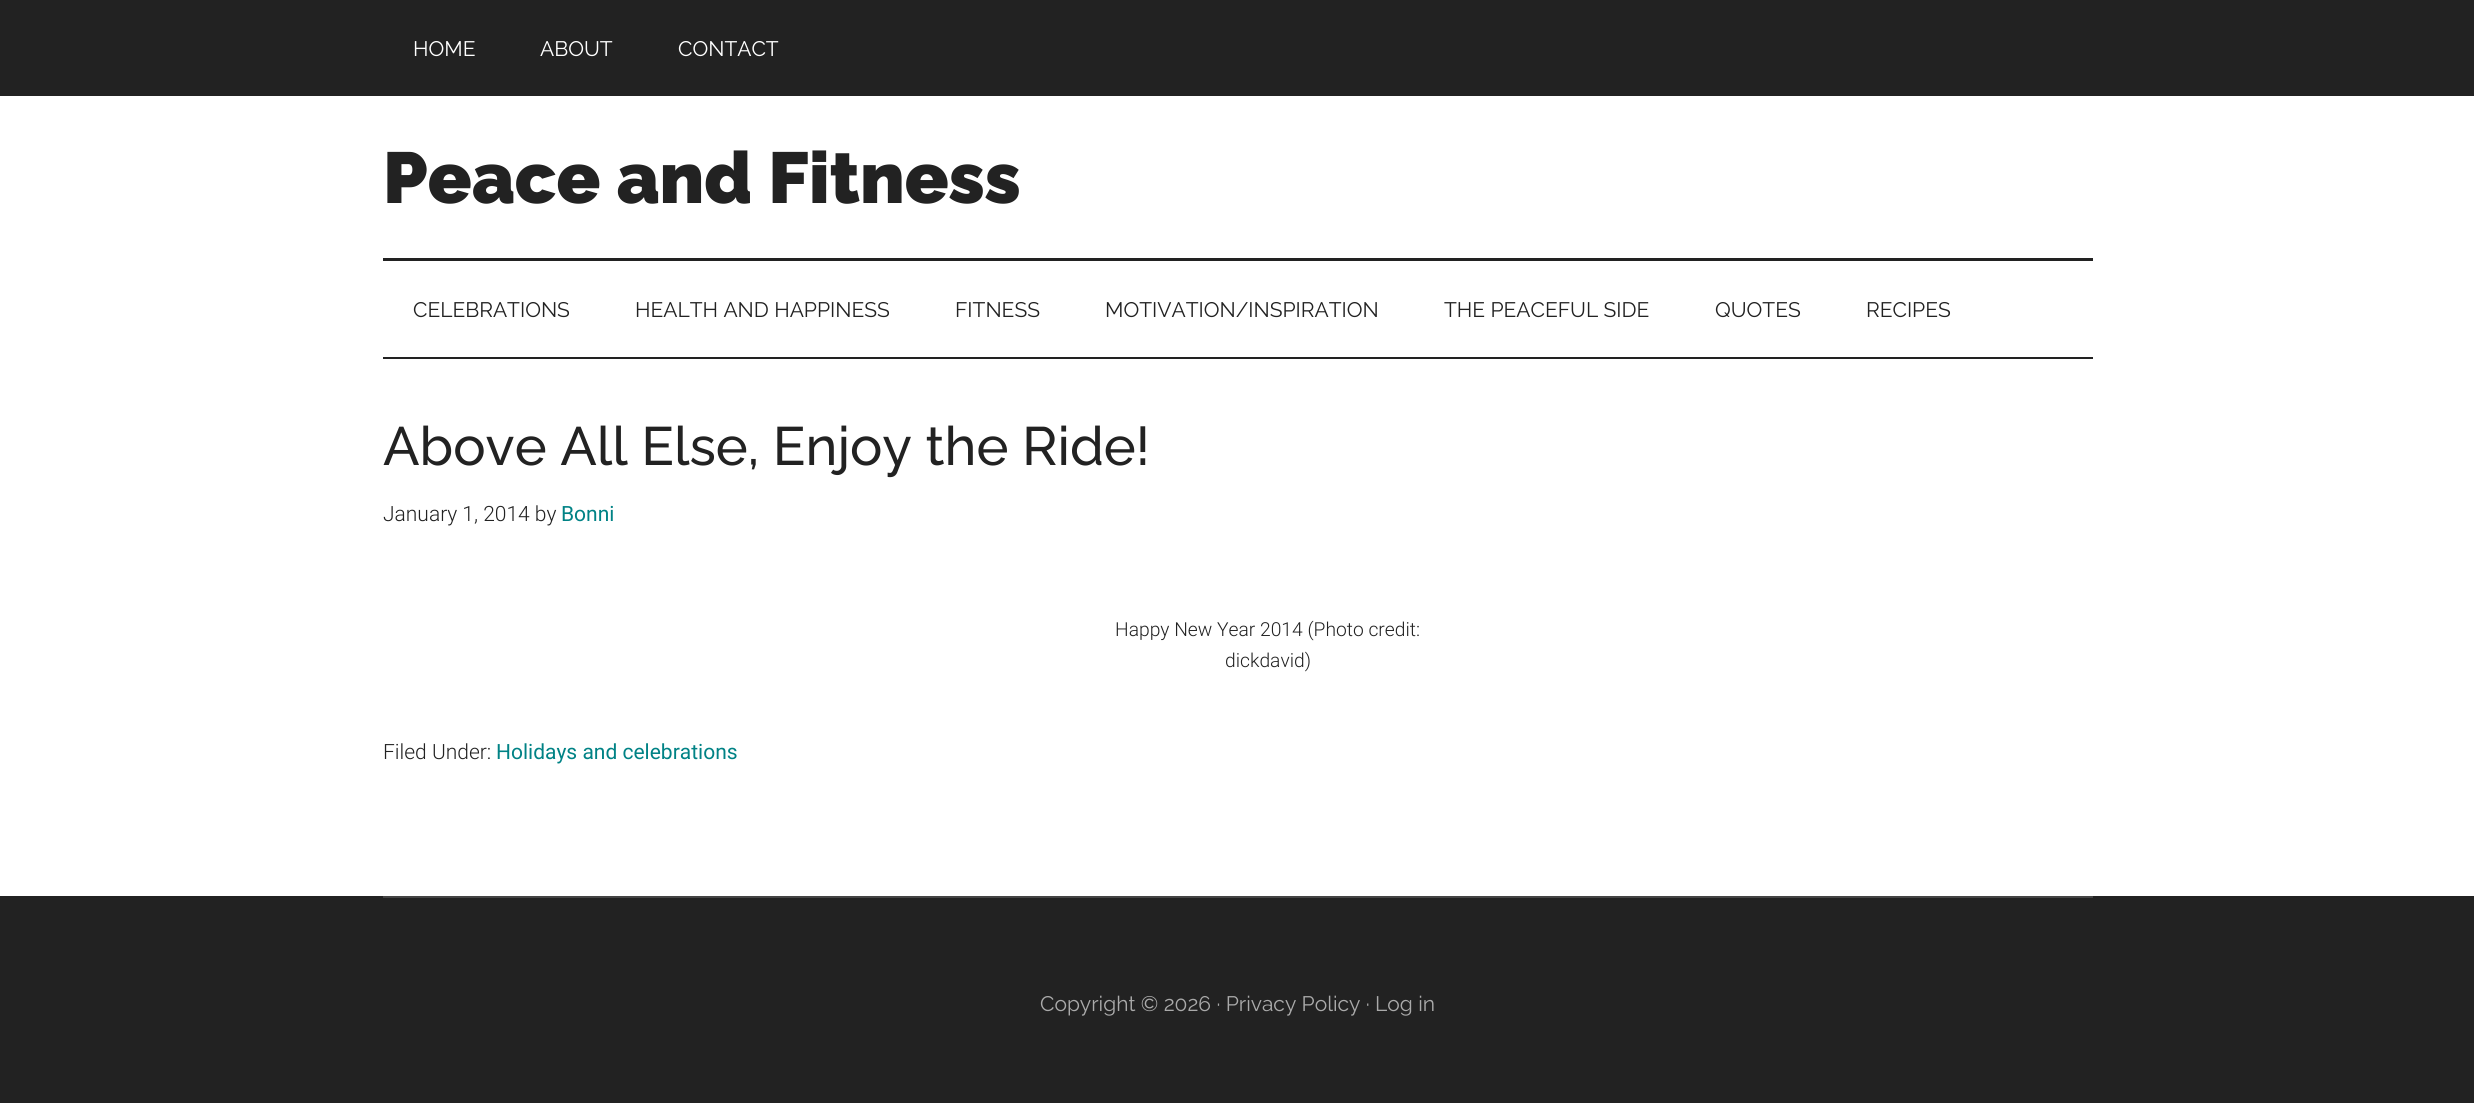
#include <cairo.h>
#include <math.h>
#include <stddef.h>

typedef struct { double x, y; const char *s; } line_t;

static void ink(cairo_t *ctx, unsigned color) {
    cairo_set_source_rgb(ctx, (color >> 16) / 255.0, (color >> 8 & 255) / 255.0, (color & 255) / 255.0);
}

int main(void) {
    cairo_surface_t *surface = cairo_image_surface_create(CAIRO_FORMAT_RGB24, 2474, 1103);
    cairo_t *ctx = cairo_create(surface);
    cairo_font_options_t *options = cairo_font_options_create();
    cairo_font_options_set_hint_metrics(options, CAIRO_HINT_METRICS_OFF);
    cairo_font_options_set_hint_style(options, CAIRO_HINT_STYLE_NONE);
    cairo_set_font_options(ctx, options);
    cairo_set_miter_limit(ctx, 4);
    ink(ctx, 0xFFFFFF);
    cairo_paint(ctx);
    ink(ctx, 0x222222);
    cairo_rectangle(ctx, 0, 0, 2474, 96);
    cairo_fill(ctx);
    cairo_select_font_face(ctx, "Raleway", CAIRO_FONT_SLANT_NORMAL, CAIRO_FONT_WEIGHT_NORMAL);
    cairo_set_font_size(ctx, 21);
    ink(ctx, 0xFFFFFF);
    {
        static const line_t items[] = {
            {413, 56, "HOME"},
            {540, 56, "ABOUT"},
            {678, 56, "CONTACT"},
        };
        for (size_t i = 0; i < sizeof items / sizeof *items; i++) {
            cairo_move_to(ctx, items[i].x, items[i].y);
            cairo_show_text(ctx, items[i].s);
        }
    }
    ink(ctx, 0x222222);
    cairo_rectangle(ctx, 383, 258, 1710, 3);
    cairo_fill(ctx);
    cairo_select_font_face(ctx, "Raleway Black", CAIRO_FONT_SLANT_NORMAL, CAIRO_FONT_WEIGHT_NORMAL);
    cairo_set_font_size(ctx, 72);
    cairo_move_to(ctx, 383, 203);
    cairo_show_text(ctx, "Peace and Fitness");
    cairo_rectangle(ctx, 383, 357, 1710, 2);
    cairo_fill(ctx);
    cairo_select_font_face(ctx, "Raleway", CAIRO_FONT_SLANT_NORMAL, CAIRO_FONT_WEIGHT_NORMAL);
    cairo_set_font_size(ctx, 21);
    {
        static const line_t items[] = {
            {413, 317, "CELEBRATIONS"},
            {635, 317, "HEALTH AND HAPPINESS"},
            {955, 317, "FITNESS"},
            {1105, 317, "MOTIVATION/INSPIRATION"},
            {1444, 317, "THE PEACEFUL SIDE"},
            {1715, 317, "QUOTES"},
            {1866, 317, "RECIPES"},
        };
        for (size_t i = 0; i < sizeof items / sizeof *items; i++) {
            cairo_move_to(ctx, items[i].x, items[i].y);
            cairo_show_text(ctx, items[i].s);
        }
    }
    cairo_select_font_face(ctx, "Raleway Medium", CAIRO_FONT_SLANT_NORMAL, CAIRO_FONT_WEIGHT_NORMAL);
    cairo_set_font_size(ctx, 54);
    cairo_move_to(ctx, 383, 465);
    cairo_show_text(ctx, "Above All Else, Enjoy the Ride!");
    cairo_select_font_face(ctx, "Roboto Light", CAIRO_FONT_SLANT_NORMAL, CAIRO_FONT_WEIGHT_NORMAL);
    cairo_set_font_size(ctx, 21);
    cairo_move_to(ctx, 383, 521);
    cairo_show_text(ctx, "January 1, 2014 by");
    cairo_select_font_face(ctx, "Roboto", CAIRO_FONT_SLANT_NORMAL, CAIRO_FONT_WEIGHT_NORMAL);
    ink(ctx, 0x008285);
    cairo_move_to(ctx, 561, 521);
    cairo_show_text(ctx, "Bonni");
    cairo_select_font_face(ctx, "Roboto Light", CAIRO_FONT_SLANT_NORMAL, CAIRO_FONT_WEIGHT_NORMAL);
    cairo_set_font_size(ctx, 19.25);
    ink(ctx, 0x222222);
    cairo_move_to(ctx, 1115, 636);
    cairo_show_text(ctx, "Happy New Year 2014 (Photo credit:");
    cairo_move_to(ctx, 1225, 667);
    cairo_show_text(ctx, "dickdavid)");
    cairo_set_font_size(ctx, 21);
    cairo_move_to(ctx, 383, 759);
    cairo_show_text(ctx, "Filed Under:");
    cairo_select_font_face(ctx, "Roboto", CAIRO_FONT_SLANT_NORMAL, CAIRO_FONT_WEIGHT_NORMAL);
    ink(ctx, 0x008285);
    cairo_move_to(ctx, 496, 759);
    cairo_show_text(ctx, "Holidays and celebrations");
    ink(ctx, 0x222222);
    cairo_rectangle(ctx, 0, 896, 2474, 207);
    cairo_fill(ctx);
    ink(ctx, 0x444444);
    cairo_rectangle(ctx, 383, 896, 1710, 2);
    cairo_fill(ctx);
    cairo_select_font_face(ctx, "Raleway", CAIRO_FONT_SLANT_NORMAL, CAIRO_FONT_WEIGHT_NORMAL);
    ink(ctx, 0xAAAAAA);
    cairo_move_to(ctx, 1040, 1011);
    cairo_show_text(ctx, "Copyright © 2026 · Privacy Policy · Log in");
    cairo_surface_write_to_png(surface, "image.png");
    cairo_font_options_destroy(options);
    cairo_destroy(ctx);
    cairo_surface_destroy(surface);
    return 0;
}
